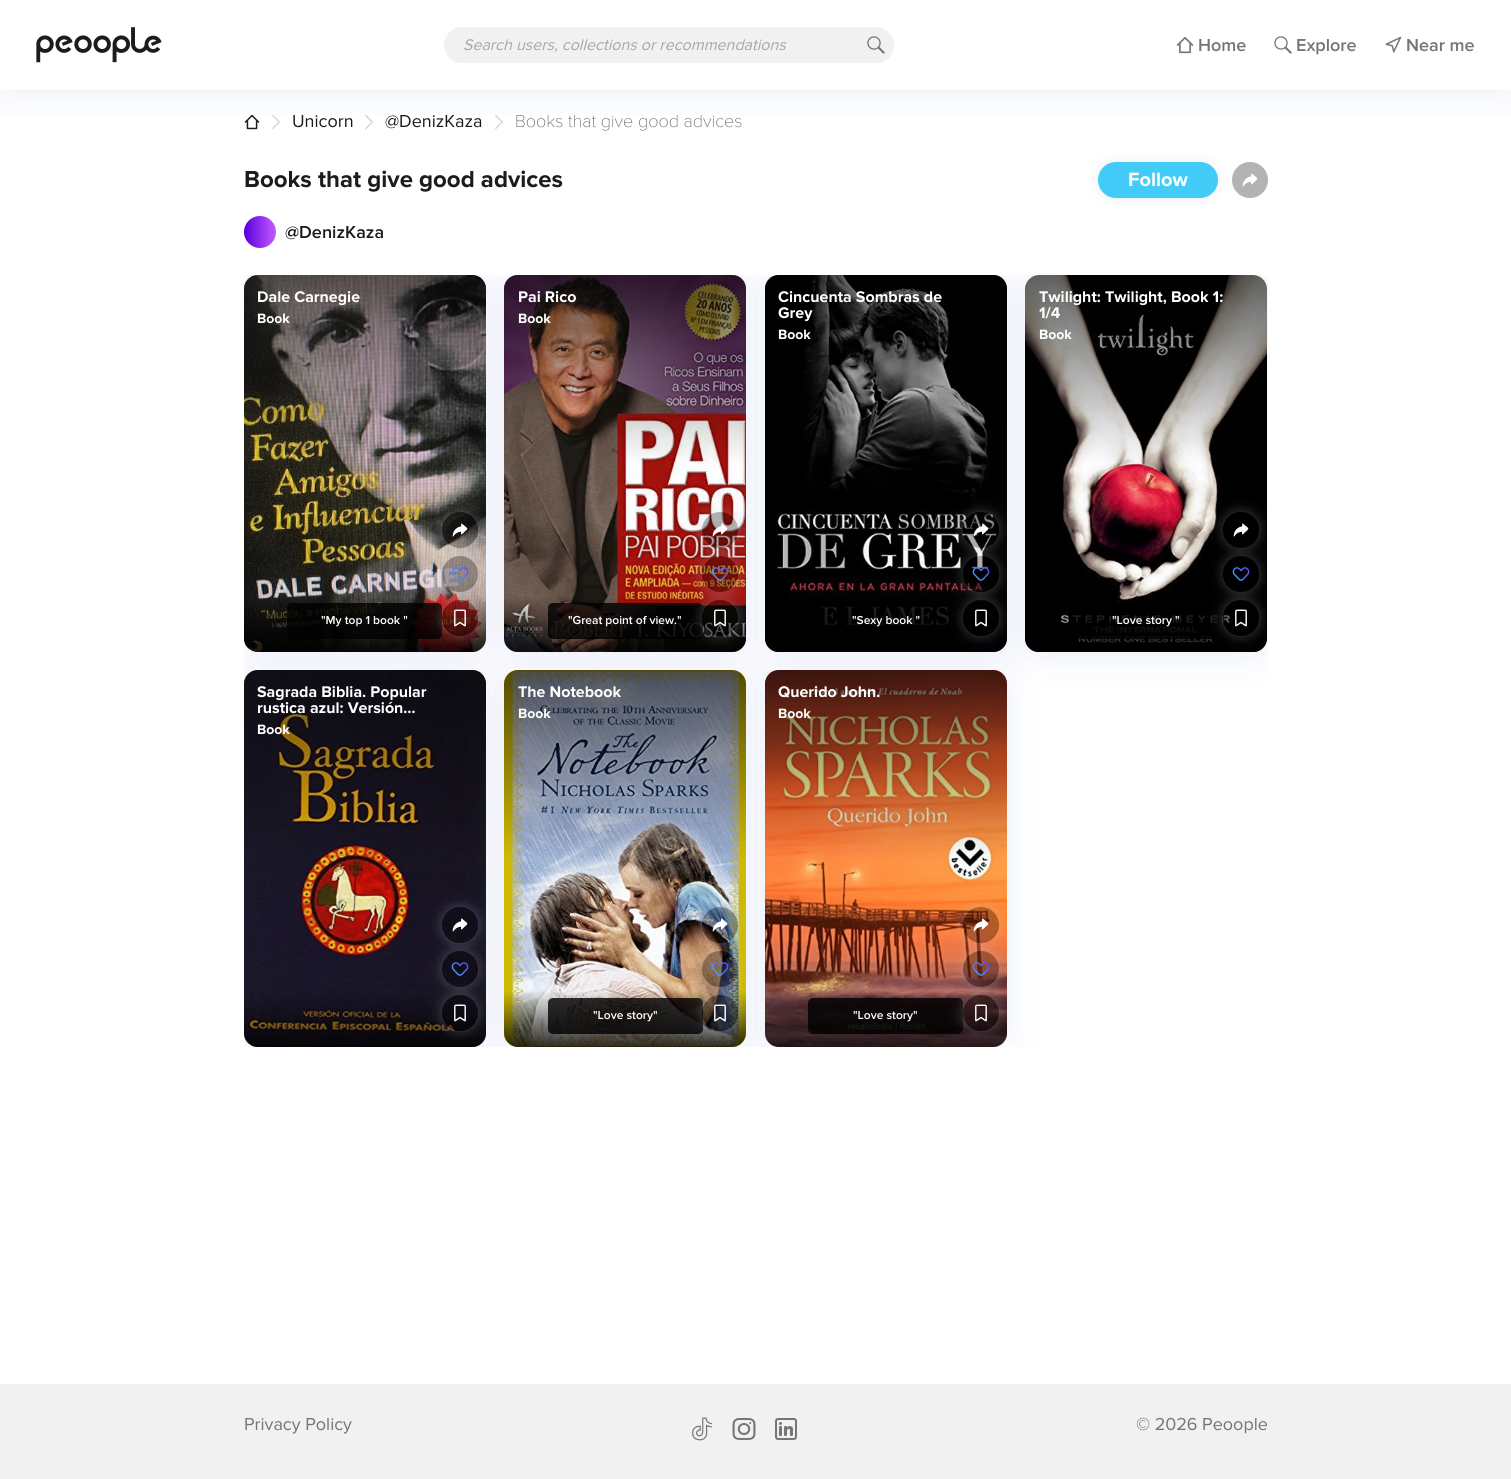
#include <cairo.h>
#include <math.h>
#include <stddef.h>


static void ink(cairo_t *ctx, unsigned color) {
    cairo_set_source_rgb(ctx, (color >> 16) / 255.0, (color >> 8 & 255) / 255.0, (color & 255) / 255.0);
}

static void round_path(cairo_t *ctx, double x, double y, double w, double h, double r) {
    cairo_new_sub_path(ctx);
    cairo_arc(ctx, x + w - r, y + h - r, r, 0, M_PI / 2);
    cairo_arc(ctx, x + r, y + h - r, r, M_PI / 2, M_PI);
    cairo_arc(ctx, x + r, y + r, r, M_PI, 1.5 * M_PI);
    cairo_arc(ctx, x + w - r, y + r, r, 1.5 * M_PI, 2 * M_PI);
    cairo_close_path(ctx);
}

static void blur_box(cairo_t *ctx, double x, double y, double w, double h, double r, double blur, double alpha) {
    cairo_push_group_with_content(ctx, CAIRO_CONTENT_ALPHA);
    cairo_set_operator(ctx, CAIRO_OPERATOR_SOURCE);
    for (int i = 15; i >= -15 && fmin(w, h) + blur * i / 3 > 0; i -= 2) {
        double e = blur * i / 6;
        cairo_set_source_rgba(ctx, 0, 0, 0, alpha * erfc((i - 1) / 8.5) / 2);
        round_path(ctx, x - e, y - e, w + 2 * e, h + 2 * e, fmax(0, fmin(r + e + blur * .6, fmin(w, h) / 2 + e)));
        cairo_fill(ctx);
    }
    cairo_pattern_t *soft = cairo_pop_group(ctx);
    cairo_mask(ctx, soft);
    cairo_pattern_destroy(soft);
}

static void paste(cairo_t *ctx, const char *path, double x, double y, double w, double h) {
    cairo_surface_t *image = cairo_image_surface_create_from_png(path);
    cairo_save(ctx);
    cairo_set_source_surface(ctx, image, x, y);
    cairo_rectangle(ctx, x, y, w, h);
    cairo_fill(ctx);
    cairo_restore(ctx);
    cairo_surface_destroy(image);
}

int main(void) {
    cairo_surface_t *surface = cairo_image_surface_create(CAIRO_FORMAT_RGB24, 1511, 1479);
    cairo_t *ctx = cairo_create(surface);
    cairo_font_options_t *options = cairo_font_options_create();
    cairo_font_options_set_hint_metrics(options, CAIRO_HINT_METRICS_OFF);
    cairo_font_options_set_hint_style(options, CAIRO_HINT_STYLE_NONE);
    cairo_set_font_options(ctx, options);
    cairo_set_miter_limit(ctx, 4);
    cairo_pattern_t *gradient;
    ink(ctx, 0xFFFFFF);
    cairo_paint(ctx);
    paste(ctx, "media/6.png", 244, 114, 16, 16);
    paste(ctx, "media/7.png", 272, 114, 8, 16);
    paste(ctx, "media/7.png", 365, 114, 8, 16);
    paste(ctx, "media/7.png", 495, 114, 8, 16);
    cairo_save(ctx);
    cairo_rectangle(ctx, 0, 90, 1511, 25);
    cairo_clip(ctx);
    ink(ctx, 0x809AD3);
    blur_box(ctx, 5, 9, 1501, 80, 0, 20.5, 0.2);
    cairo_restore(ctx);
    paste(ctx, "media/1.png", 36, 27, 126, 36);
    ink(ctx, 0xF1F1F2);
    round_path(ctx, 444, 27, 450, 36, 18);
    cairo_fill(ctx);
    cairo_select_font_face(ctx, "Proxima Nova", CAIRO_FONT_SLANT_ITALIC, CAIRO_FONT_WEIGHT_NORMAL);
    cairo_set_font_size(ctx, 16);
    ink(ctx, 0xA6A7AB);
    cairo_move_to(ctx, 463, 50);
    cairo_show_text(ctx, "Search users, collections or recommendations");
    paste(ctx, "media/2.png", 867, 36, 18, 18);
    paste(ctx, "media/3.png", 1176, 37, 18, 17);
    cairo_select_font_face(ctx, "Proxima Nova SemiBold", CAIRO_FONT_SLANT_NORMAL, CAIRO_FONT_WEIGHT_NORMAL);
    cairo_set_font_size(ctx, 18);
    ink(ctx, 0x757577);
    cairo_move_to(ctx, 1198, 51);
    cairo_show_text(ctx, "Home");
    paste(ctx, "media/4.png", 1274, 36, 18, 18);
    cairo_move_to(ctx, 1296, 51);
    cairo_show_text(ctx, "Explore");
    paste(ctx, "media/5.png", 1385, 36, 17, 17);
    cairo_move_to(ctx, 1406, 51);
    cairo_show_text(ctx, "Near me");
    cairo_select_font_face(ctx, "Proxima Nova", CAIRO_FONT_SLANT_NORMAL, CAIRO_FONT_WEIGHT_NORMAL);
    ink(ctx, 0x1C1C1C);
    cairo_move_to(ctx, 292, 127);
    cairo_show_text(ctx, "Unicorn");
    cairo_move_to(ctx, 385, 127);
    cairo_show_text(ctx, "@DenizKaza");
    cairo_select_font_face(ctx, "Proxima Nova Thin", CAIRO_FONT_SLANT_NORMAL, CAIRO_FONT_WEIGHT_NORMAL);
    ink(ctx, 0x585858);
    cairo_move_to(ctx, 515, 127);
    cairo_show_text(ctx, "Books that give good advices");
    cairo_select_font_face(ctx, "Proxima Nova", CAIRO_FONT_SLANT_NORMAL, CAIRO_FONT_WEIGHT_BOLD);
    cairo_set_font_size(ctx, 24);
    ink(ctx, 0x1C1C1C);
    cairo_move_to(ctx, 244, 187);
    cairo_show_text(ctx, "Books that give good advices");
    ink(ctx, 0xC3CBD9);
    blur_box(ctx, 1100, 164, 116, 32, 16, 7, 0.4);
    ink(ctx, 0x43CCF8);
    round_path(ctx, 1098, 162, 120, 36, 18);
    cairo_fill(ctx);
    cairo_set_font_size(ctx, 20);
    ink(ctx, 0xFFFFFF);
    cairo_move_to(ctx, 1128, 186);
    cairo_show_text(ctx, "Follow");
    cairo_set_source_rgba(ctx, 0, 0, 0, 0.3);
    cairo_new_path(ctx);
    cairo_arc(ctx, 1250, 180, 18, 0, 2 * M_PI);
    cairo_fill(ctx);
    paste(ctx, "media/8.png", 1242, 173, 16, 14);
    gradient = cairo_pattern_create_linear(276, 232, 244, 232);
    cairo_pattern_add_color_stop_rgba(gradient, 0, 0.773, 0.357, 1, 1);
    cairo_pattern_add_color_stop_rgba(gradient, 1, 0.345, 0, 0.867, 1);
    cairo_set_source(ctx, gradient);
    cairo_pattern_destroy(gradient);
    cairo_arc(ctx, 260, 232, 16, 0, 2 * M_PI);
    cairo_fill(ctx);
    cairo_select_font_face(ctx, "Proxima Nova SemiBold", CAIRO_FONT_SLANT_NORMAL, CAIRO_FONT_WEIGHT_NORMAL);
    cairo_set_font_size(ctx, 18);
    ink(ctx, 0x1C1C1C);
    cairo_move_to(ctx, 285, 238);
    cairo_show_text(ctx, "@DenizKaza");
    cairo_save(ctx);
    cairo_rectangle(ctx, 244, 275, 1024, 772);
    cairo_clip(ctx);
    ink(ctx, 0x809AD3);
    blur_box(ctx, 249, 284, 232, 367, 9, 20.5, 0.2);
    cairo_restore(ctx);
    paste(ctx, "media/9.png", 244, 275, 242, 377);
    cairo_save(ctx);
    cairo_rectangle(ctx, 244, 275, 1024, 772);
    cairo_clip(ctx);
    ink(ctx, 0x809AD3);
    blur_box(ctx, 509, 284, 232, 367, 9, 20.5, 0.2);
    cairo_restore(ctx);
    gradient = cairo_pattern_create_linear(365, 275, 365, 464);
    cairo_pattern_add_color_stop_rgba(gradient, 0, 0, 0, 0, 0.6);
    cairo_pattern_add_color_stop_rgba(gradient, 1, 0, 0, 0, 0);
    cairo_set_source(ctx, gradient);
    cairo_pattern_destroy(gradient);
    cairo_new_path(ctx);
    cairo_move_to(ctx, 258, 275);
    cairo_line_to(ctx, 472, 275);
    cairo_curve_to(ctx, 479.5, 275, 486, 281.5, 486, 289);
    cairo_line_to(ctx, 486, 464);
    cairo_line_to(ctx, 244, 464);
    cairo_line_to(ctx, 244, 289);
    cairo_curve_to(ctx, 244, 281.5, 250.5, 275, 258, 275);
    cairo_close_path(ctx);
    cairo_fill(ctx);
    cairo_select_font_face(ctx, "Proxima Nova", CAIRO_FONT_SLANT_NORMAL, CAIRO_FONT_WEIGHT_BOLD);
    cairo_set_font_size(ctx, 16);
    ink(ctx, 0xFFFFFF);
    cairo_move_to(ctx, 257, 302);
    cairo_show_text(ctx, "Dale Carnegie");
    cairo_set_font_size(ctx, 14);
    cairo_move_to(ctx, 257, 323);
    cairo_show_text(ctx, "Book");
    cairo_save(ctx);
    cairo_set_fill_rule(ctx, CAIRO_FILL_RULE_EVEN_ODD);
    cairo_new_path(ctx);
    cairo_move_to(ctx, 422, 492);
    cairo_line_to(ctx, 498, 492);
    cairo_line_to(ctx, 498, 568);
    cairo_line_to(ctx, 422, 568);
    cairo_close_path(ctx);
    cairo_move_to(ctx, 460, 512);
    cairo_curve_to(ctx, 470, 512, 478, 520, 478, 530);
    cairo_curve_to(ctx, 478, 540, 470, 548, 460, 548);
    cairo_curve_to(ctx, 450, 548, 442, 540, 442, 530);
    cairo_curve_to(ctx, 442, 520, 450, 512, 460, 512);
    cairo_close_path(ctx);
    cairo_clip(ctx);
    ink(ctx, 0xC3CBD9);
    blur_box(ctx, 444, 514, 32, 32, 16, 7, 0.4);
    cairo_restore(ctx);
    cairo_set_source_rgba(ctx, 0, 0, 0, 0.3);
    cairo_arc(ctx, 460, 530, 18, 0, 2 * M_PI);
    cairo_fill(ctx);
    paste(ctx, "media/13.png", 504, 275, 242, 377);
    cairo_save(ctx);
    cairo_rectangle(ctx, 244, 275, 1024, 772);
    cairo_clip(ctx);
    ink(ctx, 0x809AD3);
    blur_box(ctx, 249, 679, 232, 367, 9, 20.5, 0.2);
    blur_box(ctx, 770, 284, 232, 367, 9, 20.5, 0.2);
    cairo_restore(ctx);
    paste(ctx, "media/17.png", 765, 275, 242, 377);
    paste(ctx, "media/24.png", 244, 670, 242, 377);
    cairo_save(ctx);
    cairo_rectangle(ctx, 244, 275, 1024, 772);
    cairo_clip(ctx);
    ink(ctx, 0x809AD3);
    blur_box(ctx, 509, 679, 232, 367, 9, 20.5, 0.2);
    cairo_restore(ctx);
    gradient = cairo_pattern_create_linear(365, 652, 365, 596);
    cairo_pattern_add_color_stop_rgba(gradient, 0, 0, 0, 0, 0.8);
    cairo_pattern_add_color_stop_rgba(gradient, 1, 0, 0, 0, 0);
    cairo_set_source(ctx, gradient);
    cairo_pattern_destroy(gradient);
    cairo_new_path(ctx);
    cairo_move_to(ctx, 244, 596);
    cairo_line_to(ctx, 486, 596);
    cairo_line_to(ctx, 486, 638);
    cairo_curve_to(ctx, 486, 645.5, 479.5, 652, 472, 652);
    cairo_line_to(ctx, 258, 652);
    cairo_curve_to(ctx, 250.5, 652, 244, 645.5, 244, 638);
    cairo_close_path(ctx);
    cairo_fill(ctx);
    cairo_set_source_rgba(ctx, 0, 0, 0, 0.8);
    round_path(ctx, 287, 603, 155, 36, 5);
    cairo_fill(ctx);
    cairo_save(ctx);
    cairo_set_fill_rule(ctx, CAIRO_FILL_RULE_EVEN_ODD);
    cairo_new_path(ctx);
    cairo_move_to(ctx, 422, 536);
    cairo_line_to(ctx, 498, 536);
    cairo_line_to(ctx, 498, 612);
    cairo_line_to(ctx, 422, 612);
    cairo_close_path(ctx);
    cairo_move_to(ctx, 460, 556);
    cairo_curve_to(ctx, 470, 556, 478, 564, 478, 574);
    cairo_curve_to(ctx, 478, 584, 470, 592, 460, 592);
    cairo_curve_to(ctx, 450, 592, 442, 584, 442, 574);
    cairo_curve_to(ctx, 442, 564, 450, 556, 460, 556);
    cairo_close_path(ctx);
    cairo_clip(ctx);
    ink(ctx, 0xC3CBD9);
    blur_box(ctx, 444, 558, 32, 32, 16, 7, 0.4);
    cairo_restore(ctx);
    paste(ctx, "media/10.png", 452, 523, 16, 14);
    cairo_set_source_rgba(ctx, 0, 0, 0, 0.3);
    cairo_arc(ctx, 460, 574, 18, 0, 2 * M_PI);
    cairo_fill(ctx);
    cairo_save(ctx);
    cairo_set_fill_rule(ctx, CAIRO_FILL_RULE_EVEN_ODD);
    cairo_new_path(ctx);
    cairo_move_to(ctx, 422, 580);
    cairo_line_to(ctx, 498, 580);
    cairo_line_to(ctx, 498, 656);
    cairo_line_to(ctx, 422, 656);
    cairo_close_path(ctx);
    cairo_move_to(ctx, 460, 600);
    cairo_curve_to(ctx, 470, 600, 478, 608, 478, 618);
    cairo_curve_to(ctx, 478, 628, 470, 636, 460, 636);
    cairo_curve_to(ctx, 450, 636, 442, 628, 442, 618);
    cairo_curve_to(ctx, 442, 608, 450, 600, 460, 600);
    cairo_close_path(ctx);
    cairo_clip(ctx);
    ink(ctx, 0xC3CBD9);
    blur_box(ctx, 444, 602, 32, 32, 16, 7, 0.4);
    cairo_restore(ctx);
    paste(ctx, "media/11.png", 451, 567, 18, 14);
    cairo_arc(ctx, 460, 618, 18, 0, 2 * M_PI);
    cairo_fill(ctx);
    paste(ctx, "media/12.png", 454, 609, 12, 18);
    cairo_select_font_face(ctx, "Proxima Nova SemiBold", CAIRO_FONT_SLANT_NORMAL, CAIRO_FONT_WEIGHT_NORMAL);
    cairo_set_font_size(ctx, 12);
    ink(ctx, 0xFFFFFF);
    cairo_move_to(ctx, 321, 624);
    cairo_show_text(ctx, "\"My top 1 book \"");
    gradient = cairo_pattern_create_linear(625, 275, 625, 464);
    cairo_pattern_add_color_stop_rgba(gradient, 0, 0, 0, 0, 0.6);
    cairo_pattern_add_color_stop_rgba(gradient, 1, 0, 0, 0, 0);
    cairo_set_source(ctx, gradient);
    cairo_pattern_destroy(gradient);
    cairo_new_path(ctx);
    cairo_move_to(ctx, 518, 275);
    cairo_line_to(ctx, 732, 275);
    cairo_curve_to(ctx, 739.5, 275, 746, 281.5, 746, 289);
    cairo_line_to(ctx, 746, 464);
    cairo_line_to(ctx, 504, 464);
    cairo_line_to(ctx, 504, 289);
    cairo_curve_to(ctx, 504, 281.5, 510.5, 275, 518, 275);
    cairo_close_path(ctx);
    cairo_fill(ctx);
    cairo_select_font_face(ctx, "Proxima Nova", CAIRO_FONT_SLANT_NORMAL, CAIRO_FONT_WEIGHT_BOLD);
    cairo_set_font_size(ctx, 16);
    ink(ctx, 0xFFFFFF);
    cairo_move_to(ctx, 518, 302);
    cairo_show_text(ctx, "Pai Rico");
    cairo_set_font_size(ctx, 14);
    cairo_move_to(ctx, 518, 323);
    cairo_show_text(ctx, "Book");
    cairo_save(ctx);
    cairo_set_fill_rule(ctx, CAIRO_FILL_RULE_EVEN_ODD);
    cairo_new_path(ctx);
    cairo_move_to(ctx, 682, 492);
    cairo_line_to(ctx, 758, 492);
    cairo_line_to(ctx, 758, 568);
    cairo_line_to(ctx, 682, 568);
    cairo_close_path(ctx);
    cairo_move_to(ctx, 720, 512);
    cairo_curve_to(ctx, 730, 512, 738, 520, 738, 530);
    cairo_curve_to(ctx, 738, 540, 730, 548, 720, 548);
    cairo_curve_to(ctx, 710, 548, 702, 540, 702, 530);
    cairo_curve_to(ctx, 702, 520, 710, 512, 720, 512);
    cairo_close_path(ctx);
    cairo_clip(ctx);
    ink(ctx, 0xC3CBD9);
    blur_box(ctx, 704, 514, 32, 32, 16, 7, 0.4);
    cairo_restore(ctx);
    cairo_set_source_rgba(ctx, 0, 0, 0, 0.3);
    cairo_arc(ctx, 720, 530, 18, 0, 2 * M_PI);
    cairo_fill(ctx);
    cairo_save(ctx);
    cairo_rectangle(ctx, 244, 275, 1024, 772);
    cairo_clip(ctx);
    ink(ctx, 0x809AD3);
    blur_box(ctx, 1030, 284, 232, 367, 9, 20.5, 0.2);
    cairo_restore(ctx);
    paste(ctx, "media/21.png", 1025, 275, 242, 377);
    paste(ctx, "media/28.png", 504, 670, 242, 377);
    cairo_save(ctx);
    cairo_rectangle(ctx, 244, 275, 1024, 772);
    cairo_clip(ctx);
    ink(ctx, 0x809AD3);
    blur_box(ctx, 770, 679, 232, 367, 9, 20.5, 0.2);
    cairo_restore(ctx);
    gradient = cairo_pattern_create_linear(625, 652, 625, 596);
    cairo_pattern_add_color_stop_rgba(gradient, 0, 0, 0, 0, 0.8);
    cairo_pattern_add_color_stop_rgba(gradient, 1, 0, 0, 0, 0);
    cairo_set_source(ctx, gradient);
    cairo_pattern_destroy(gradient);
    cairo_new_path(ctx);
    cairo_move_to(ctx, 504, 596);
    cairo_line_to(ctx, 746, 596);
    cairo_line_to(ctx, 746, 638);
    cairo_curve_to(ctx, 746, 645.5, 739.5, 652, 732, 652);
    cairo_line_to(ctx, 518, 652);
    cairo_curve_to(ctx, 510.5, 652, 504, 645.5, 504, 638);
    cairo_close_path(ctx);
    cairo_fill(ctx);
    cairo_set_source_rgba(ctx, 0, 0, 0, 0.8);
    round_path(ctx, 548, 603, 155, 36, 5);
    cairo_fill(ctx);
    cairo_save(ctx);
    cairo_set_fill_rule(ctx, CAIRO_FILL_RULE_EVEN_ODD);
    cairo_new_path(ctx);
    cairo_move_to(ctx, 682, 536);
    cairo_line_to(ctx, 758, 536);
    cairo_line_to(ctx, 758, 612);
    cairo_line_to(ctx, 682, 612);
    cairo_close_path(ctx);
    cairo_move_to(ctx, 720, 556);
    cairo_curve_to(ctx, 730, 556, 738, 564, 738, 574);
    cairo_curve_to(ctx, 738, 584, 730, 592, 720, 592);
    cairo_curve_to(ctx, 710, 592, 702, 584, 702, 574);
    cairo_curve_to(ctx, 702, 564, 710, 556, 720, 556);
    cairo_close_path(ctx);
    cairo_clip(ctx);
    ink(ctx, 0xC3CBD9);
    blur_box(ctx, 704, 558, 32, 32, 16, 7, 0.4);
    cairo_restore(ctx);
    paste(ctx, "media/14.png", 712, 523, 16, 14);
    cairo_set_source_rgba(ctx, 0, 0, 0, 0.3);
    cairo_arc(ctx, 720, 574, 18, 0, 2 * M_PI);
    cairo_fill(ctx);
    cairo_save(ctx);
    cairo_set_fill_rule(ctx, CAIRO_FILL_RULE_EVEN_ODD);
    cairo_new_path(ctx);
    cairo_move_to(ctx, 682, 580);
    cairo_line_to(ctx, 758, 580);
    cairo_line_to(ctx, 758, 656);
    cairo_line_to(ctx, 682, 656);
    cairo_close_path(ctx);
    cairo_move_to(ctx, 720, 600);
    cairo_curve_to(ctx, 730, 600, 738, 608, 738, 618);
    cairo_curve_to(ctx, 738, 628, 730, 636, 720, 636);
    cairo_curve_to(ctx, 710, 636, 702, 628, 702, 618);
    cairo_curve_to(ctx, 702, 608, 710, 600, 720, 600);
    cairo_close_path(ctx);
    cairo_clip(ctx);
    ink(ctx, 0xC3CBD9);
    blur_box(ctx, 704, 602, 32, 32, 16, 7, 0.4);
    cairo_restore(ctx);
    paste(ctx, "media/15.png", 711, 567, 18, 14);
    cairo_arc(ctx, 720, 618, 18, 0, 2 * M_PI);
    cairo_fill(ctx);
    paste(ctx, "media/16.png", 714, 609, 12, 18);
    cairo_select_font_face(ctx, "Proxima Nova SemiBold", CAIRO_FONT_SLANT_NORMAL, CAIRO_FONT_WEIGHT_NORMAL);
    cairo_set_font_size(ctx, 12);
    ink(ctx, 0xFFFFFF);
    cairo_move_to(ctx, 568, 624);
    cairo_show_text(ctx, "\"Great point of view.\"");
    gradient = cairo_pattern_create_linear(886, 275, 886, 464);
    cairo_pattern_add_color_stop_rgba(gradient, 0, 0, 0, 0, 0.6);
    cairo_pattern_add_color_stop_rgba(gradient, 1, 0, 0, 0, 0);
    cairo_set_source(ctx, gradient);
    cairo_pattern_destroy(gradient);
    cairo_new_path(ctx);
    cairo_move_to(ctx, 779, 275);
    cairo_line_to(ctx, 993, 275);
    cairo_curve_to(ctx, 1000.5, 275, 1007, 281.5, 1007, 289);
    cairo_line_to(ctx, 1007, 464);
    cairo_line_to(ctx, 765, 464);
    cairo_line_to(ctx, 765, 289);
    cairo_curve_to(ctx, 765, 281.5, 771.5, 275, 779, 275);
    cairo_close_path(ctx);
    cairo_fill(ctx);
    cairo_select_font_face(ctx, "Proxima Nova", CAIRO_FONT_SLANT_NORMAL, CAIRO_FONT_WEIGHT_BOLD);
    cairo_set_font_size(ctx, 16);
    ink(ctx, 0xFFFFFF);
    cairo_move_to(ctx, 778, 302);
    cairo_show_text(ctx, "Cincuenta Sombras de");
    cairo_move_to(ctx, 778, 318);
    cairo_show_text(ctx, "Grey");
    cairo_set_font_size(ctx, 14);
    cairo_move_to(ctx, 778, 339);
    cairo_show_text(ctx, "Book");
    cairo_save(ctx);
    cairo_set_fill_rule(ctx, CAIRO_FILL_RULE_EVEN_ODD);
    cairo_new_path(ctx);
    cairo_move_to(ctx, 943, 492);
    cairo_line_to(ctx, 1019, 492);
    cairo_line_to(ctx, 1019, 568);
    cairo_line_to(ctx, 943, 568);
    cairo_close_path(ctx);
    cairo_move_to(ctx, 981, 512);
    cairo_curve_to(ctx, 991, 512, 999, 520, 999, 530);
    cairo_curve_to(ctx, 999, 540, 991, 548, 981, 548);
    cairo_curve_to(ctx, 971, 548, 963, 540, 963, 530);
    cairo_curve_to(ctx, 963, 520, 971, 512, 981, 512);
    cairo_close_path(ctx);
    cairo_clip(ctx);
    ink(ctx, 0xC3CBD9);
    blur_box(ctx, 965, 514, 32, 32, 16, 7, 0.4);
    cairo_restore(ctx);
    cairo_set_source_rgba(ctx, 0, 0, 0, 0.3);
    cairo_arc(ctx, 981, 530, 18, 0, 2 * M_PI);
    cairo_fill(ctx);
    gradient = cairo_pattern_create_linear(886, 652, 886, 596);
    cairo_pattern_add_color_stop_rgba(gradient, 0, 0, 0, 0, 0.8);
    cairo_pattern_add_color_stop_rgba(gradient, 1, 0, 0, 0, 0);
    cairo_set_source(ctx, gradient);
    cairo_pattern_destroy(gradient);
    cairo_new_path(ctx);
    cairo_move_to(ctx, 765, 596);
    cairo_line_to(ctx, 1007, 596);
    cairo_line_to(ctx, 1007, 638);
    cairo_curve_to(ctx, 1007, 645.5, 1000.5, 652, 993, 652);
    cairo_line_to(ctx, 779, 652);
    cairo_curve_to(ctx, 771.5, 652, 765, 645.5, 765, 638);
    cairo_close_path(ctx);
    cairo_fill(ctx);
    cairo_set_source_rgba(ctx, 0, 0, 0, 0.8);
    round_path(ctx, 808, 603, 155, 36, 5);
    cairo_fill(ctx);
    cairo_save(ctx);
    cairo_set_fill_rule(ctx, CAIRO_FILL_RULE_EVEN_ODD);
    cairo_new_path(ctx);
    cairo_move_to(ctx, 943, 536);
    cairo_line_to(ctx, 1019, 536);
    cairo_line_to(ctx, 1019, 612);
    cairo_line_to(ctx, 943, 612);
    cairo_close_path(ctx);
    cairo_move_to(ctx, 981, 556);
    cairo_curve_to(ctx, 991, 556, 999, 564, 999, 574);
    cairo_curve_to(ctx, 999, 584, 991, 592, 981, 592);
    cairo_curve_to(ctx, 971, 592, 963, 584, 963, 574);
    cairo_curve_to(ctx, 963, 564, 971, 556, 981, 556);
    cairo_close_path(ctx);
    cairo_clip(ctx);
    ink(ctx, 0xC3CBD9);
    blur_box(ctx, 965, 558, 32, 32, 16, 7, 0.4);
    cairo_restore(ctx);
    paste(ctx, "media/18.png", 973, 523, 16, 14);
    cairo_set_source_rgba(ctx, 0, 0, 0, 0.3);
    cairo_arc(ctx, 981, 574, 18, 0, 2 * M_PI);
    cairo_fill(ctx);
    cairo_save(ctx);
    cairo_set_fill_rule(ctx, CAIRO_FILL_RULE_EVEN_ODD);
    cairo_new_path(ctx);
    cairo_move_to(ctx, 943, 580);
    cairo_line_to(ctx, 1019, 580);
    cairo_line_to(ctx, 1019, 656);
    cairo_line_to(ctx, 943, 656);
    cairo_close_path(ctx);
    cairo_move_to(ctx, 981, 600);
    cairo_curve_to(ctx, 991, 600, 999, 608, 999, 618);
    cairo_curve_to(ctx, 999, 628, 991, 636, 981, 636);
    cairo_curve_to(ctx, 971, 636, 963, 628, 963, 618);
    cairo_curve_to(ctx, 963, 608, 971, 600, 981, 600);
    cairo_close_path(ctx);
    cairo_clip(ctx);
    ink(ctx, 0xC3CBD9);
    blur_box(ctx, 965, 602, 32, 32, 16, 7, 0.4);
    cairo_restore(ctx);
    paste(ctx, "media/19.png", 972, 567, 18, 14);
    cairo_arc(ctx, 981, 618, 18, 0, 2 * M_PI);
    cairo_fill(ctx);
    paste(ctx, "media/20.png", 975, 609, 12, 18);
    cairo_select_font_face(ctx, "Proxima Nova SemiBold", CAIRO_FONT_SLANT_NORMAL, CAIRO_FONT_WEIGHT_NORMAL);
    cairo_set_font_size(ctx, 12);
    ink(ctx, 0xFFFFFF);
    cairo_move_to(ctx, 852, 624);
    cairo_show_text(ctx, "\"Sexy book \"");
    gradient = cairo_pattern_create_linear(1146, 275, 1146, 464);
    cairo_pattern_add_color_stop_rgba(gradient, 0, 0, 0, 0, 0.6);
    cairo_pattern_add_color_stop_rgba(gradient, 1, 0, 0, 0, 0);
    cairo_set_source(ctx, gradient);
    cairo_pattern_destroy(gradient);
    cairo_new_path(ctx);
    cairo_move_to(ctx, 1039, 275);
    cairo_line_to(ctx, 1253, 275);
    cairo_curve_to(ctx, 1260.5, 275, 1267, 281.5, 1267, 289);
    cairo_line_to(ctx, 1267, 464);
    cairo_line_to(ctx, 1025, 464);
    cairo_line_to(ctx, 1025, 289);
    cairo_curve_to(ctx, 1025, 281.5, 1031.5, 275, 1039, 275);
    cairo_close_path(ctx);
    cairo_fill(ctx);
    cairo_select_font_face(ctx, "Proxima Nova", CAIRO_FONT_SLANT_NORMAL, CAIRO_FONT_WEIGHT_BOLD);
    cairo_set_font_size(ctx, 16);
    ink(ctx, 0xFFFFFF);
    cairo_move_to(ctx, 1039, 302);
    cairo_show_text(ctx, "Twilight: Twilight, Book 1:");
    cairo_move_to(ctx, 1039, 318);
    cairo_show_text(ctx, "1/4");
    cairo_set_font_size(ctx, 14);
    cairo_move_to(ctx, 1039, 339);
    cairo_show_text(ctx, "Book");
    cairo_save(ctx);
    cairo_set_fill_rule(ctx, CAIRO_FILL_RULE_EVEN_ODD);
    cairo_new_path(ctx);
    cairo_move_to(ctx, 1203, 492);
    cairo_line_to(ctx, 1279, 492);
    cairo_line_to(ctx, 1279, 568);
    cairo_line_to(ctx, 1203, 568);
    cairo_close_path(ctx);
    cairo_move_to(ctx, 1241, 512);
    cairo_curve_to(ctx, 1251, 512, 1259, 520, 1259, 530);
    cairo_curve_to(ctx, 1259, 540, 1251, 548, 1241, 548);
    cairo_curve_to(ctx, 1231, 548, 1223, 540, 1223, 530);
    cairo_curve_to(ctx, 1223, 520, 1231, 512, 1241, 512);
    cairo_close_path(ctx);
    cairo_clip(ctx);
    ink(ctx, 0xC3CBD9);
    blur_box(ctx, 1225, 514, 32, 32, 16, 7, 0.4);
    cairo_restore(ctx);
    gradient = cairo_pattern_create_linear(1146, 652, 1146, 596);
    cairo_pattern_add_color_stop_rgba(gradient, 0, 0, 0, 0, 0.8);
    cairo_pattern_add_color_stop_rgba(gradient, 1, 0, 0, 0, 0);
    cairo_set_source(ctx, gradient);
    cairo_pattern_destroy(gradient);
    cairo_new_path(ctx);
    cairo_move_to(ctx, 1025, 596);
    cairo_line_to(ctx, 1267, 596);
    cairo_line_to(ctx, 1267, 638);
    cairo_curve_to(ctx, 1267, 645.5, 1260.5, 652, 1253, 652);
    cairo_line_to(ctx, 1039, 652);
    cairo_curve_to(ctx, 1031.5, 652, 1025, 645.5, 1025, 638);
    cairo_close_path(ctx);
    cairo_fill(ctx);
    cairo_set_source_rgba(ctx, 0, 0, 0, 0.8);
    round_path(ctx, 1069, 603, 155, 36, 5);
    cairo_fill(ctx);
    cairo_save(ctx);
    cairo_set_fill_rule(ctx, CAIRO_FILL_RULE_EVEN_ODD);
    cairo_new_path(ctx);
    cairo_move_to(ctx, 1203, 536);
    cairo_line_to(ctx, 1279, 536);
    cairo_line_to(ctx, 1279, 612);
    cairo_line_to(ctx, 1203, 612);
    cairo_close_path(ctx);
    cairo_move_to(ctx, 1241, 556);
    cairo_curve_to(ctx, 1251, 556, 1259, 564, 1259, 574);
    cairo_curve_to(ctx, 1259, 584, 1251, 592, 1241, 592);
    cairo_curve_to(ctx, 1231, 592, 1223, 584, 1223, 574);
    cairo_curve_to(ctx, 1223, 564, 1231, 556, 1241, 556);
    cairo_close_path(ctx);
    cairo_clip(ctx);
    ink(ctx, 0xC3CBD9);
    blur_box(ctx, 1225, 558, 32, 32, 16, 7, 0.4);
    cairo_restore(ctx);
    paste(ctx, "media/22.png", 1233, 523, 16, 14);
    cairo_save(ctx);
    cairo_set_fill_rule(ctx, CAIRO_FILL_RULE_EVEN_ODD);
    cairo_new_path(ctx);
    cairo_move_to(ctx, 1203, 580);
    cairo_line_to(ctx, 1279, 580);
    cairo_line_to(ctx, 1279, 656);
    cairo_line_to(ctx, 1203, 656);
    cairo_close_path(ctx);
    cairo_move_to(ctx, 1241, 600);
    cairo_curve_to(ctx, 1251, 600, 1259, 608, 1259, 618);
    cairo_curve_to(ctx, 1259, 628, 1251, 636, 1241, 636);
    cairo_curve_to(ctx, 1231, 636, 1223, 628, 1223, 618);
    cairo_curve_to(ctx, 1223, 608, 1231, 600, 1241, 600);
    cairo_close_path(ctx);
    cairo_clip(ctx);
    ink(ctx, 0xC3CBD9);
    blur_box(ctx, 1225, 602, 32, 32, 16, 7, 0.4);
    cairo_restore(ctx);
    paste(ctx, "media/23.png", 1232, 567, 18, 14);
    cairo_set_source_rgba(ctx, 0, 0, 0, 0.3);
    cairo_arc(ctx, 1241, 618, 18, 0, 2 * M_PI);
    cairo_fill(ctx);
    paste(ctx, "media/20.png", 1235, 609, 12, 18);
    cairo_select_font_face(ctx, "Proxima Nova SemiBold", CAIRO_FONT_SLANT_NORMAL, CAIRO_FONT_WEIGHT_NORMAL);
    cairo_set_font_size(ctx, 12);
    ink(ctx, 0xFFFFFF);
    cairo_move_to(ctx, 1112, 624);
    cairo_show_text(ctx, "\"Love story \"");
    gradient = cairo_pattern_create_linear(365, 670, 365, 859);
    cairo_pattern_add_color_stop_rgba(gradient, 0, 0, 0, 0, 0.6);
    cairo_pattern_add_color_stop_rgba(gradient, 1, 0, 0, 0, 0);
    cairo_set_source(ctx, gradient);
    cairo_pattern_destroy(gradient);
    cairo_new_path(ctx);
    cairo_move_to(ctx, 258, 670);
    cairo_line_to(ctx, 472, 670);
    cairo_curve_to(ctx, 479.5, 670, 486, 676.5, 486, 684);
    cairo_line_to(ctx, 486, 859);
    cairo_line_to(ctx, 244, 859);
    cairo_line_to(ctx, 244, 684);
    cairo_curve_to(ctx, 244, 676.5, 250.5, 670, 258, 670);
    cairo_close_path(ctx);
    cairo_fill(ctx);
    cairo_select_font_face(ctx, "Proxima Nova", CAIRO_FONT_SLANT_NORMAL, CAIRO_FONT_WEIGHT_BOLD);
    cairo_set_font_size(ctx, 16);
    ink(ctx, 0xFFFFFF);
    cairo_move_to(ctx, 257, 697);
    cairo_show_text(ctx, "Sagrada Biblia. Popular");
    cairo_move_to(ctx, 257, 713);
    cairo_show_text(ctx, "rustica azul: Versión…");
    cairo_set_font_size(ctx, 14);
    cairo_move_to(ctx, 257, 734);
    cairo_show_text(ctx, "Book");
    cairo_save(ctx);
    cairo_set_fill_rule(ctx, CAIRO_FILL_RULE_EVEN_ODD);
    cairo_new_path(ctx);
    cairo_move_to(ctx, 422, 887);
    cairo_line_to(ctx, 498, 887);
    cairo_line_to(ctx, 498, 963);
    cairo_line_to(ctx, 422, 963);
    cairo_close_path(ctx);
    cairo_move_to(ctx, 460, 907);
    cairo_curve_to(ctx, 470, 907, 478, 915, 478, 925);
    cairo_curve_to(ctx, 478, 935, 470, 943, 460, 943);
    cairo_curve_to(ctx, 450, 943, 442, 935, 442, 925);
    cairo_curve_to(ctx, 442, 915, 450, 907, 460, 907);
    cairo_close_path(ctx);
    cairo_clip(ctx);
    ink(ctx, 0xC3CBD9);
    blur_box(ctx, 444, 909, 32, 32, 16, 7, 0.4);
    cairo_restore(ctx);
    cairo_set_source_rgba(ctx, 0, 0, 0, 0.3);
    cairo_arc(ctx, 460, 925, 18, 0, 2 * M_PI);
    cairo_fill(ctx);
    gradient = cairo_pattern_create_linear(365, 1047, 365, 991);
    cairo_pattern_add_color_stop_rgba(gradient, 0, 0, 0, 0, 0.8);
    cairo_pattern_add_color_stop_rgba(gradient, 1, 0, 0, 0, 0);
    cairo_set_source(ctx, gradient);
    cairo_pattern_destroy(gradient);
    cairo_new_path(ctx);
    cairo_move_to(ctx, 244, 991);
    cairo_line_to(ctx, 486, 991);
    cairo_line_to(ctx, 486, 1033);
    cairo_curve_to(ctx, 486, 1040.5, 479.5, 1047, 472, 1047);
    cairo_line_to(ctx, 258, 1047);
    cairo_curve_to(ctx, 250.5, 1047, 244, 1040.5, 244, 1033);
    cairo_close_path(ctx);
    cairo_fill(ctx);
    cairo_save(ctx);
    cairo_set_fill_rule(ctx, CAIRO_FILL_RULE_EVEN_ODD);
    cairo_new_path(ctx);
    cairo_move_to(ctx, 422, 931);
    cairo_line_to(ctx, 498, 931);
    cairo_line_to(ctx, 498, 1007);
    cairo_line_to(ctx, 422, 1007);
    cairo_close_path(ctx);
    cairo_move_to(ctx, 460, 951);
    cairo_curve_to(ctx, 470, 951, 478, 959, 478, 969);
    cairo_curve_to(ctx, 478, 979, 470, 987, 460, 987);
    cairo_curve_to(ctx, 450, 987, 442, 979, 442, 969);
    cairo_curve_to(ctx, 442, 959, 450, 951, 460, 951);
    cairo_close_path(ctx);
    cairo_clip(ctx);
    ink(ctx, 0xC3CBD9);
    blur_box(ctx, 444, 953, 32, 32, 16, 7, 0.4);
    cairo_restore(ctx);
    paste(ctx, "media/25.png", 452, 918, 16, 14);
    cairo_set_source_rgba(ctx, 0, 0, 0, 0.3);
    cairo_arc(ctx, 460, 969, 18, 0, 2 * M_PI);
    cairo_fill(ctx);
    cairo_save(ctx);
    cairo_set_fill_rule(ctx, CAIRO_FILL_RULE_EVEN_ODD);
    cairo_new_path(ctx);
    cairo_move_to(ctx, 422, 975);
    cairo_line_to(ctx, 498, 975);
    cairo_line_to(ctx, 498, 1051);
    cairo_line_to(ctx, 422, 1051);
    cairo_close_path(ctx);
    cairo_move_to(ctx, 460, 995);
    cairo_curve_to(ctx, 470, 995, 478, 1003, 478, 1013);
    cairo_curve_to(ctx, 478, 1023, 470, 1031, 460, 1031);
    cairo_curve_to(ctx, 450, 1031, 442, 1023, 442, 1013);
    cairo_curve_to(ctx, 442, 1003, 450, 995, 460, 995);
    cairo_close_path(ctx);
    cairo_clip(ctx);
    ink(ctx, 0xC3CBD9);
    blur_box(ctx, 444, 997, 32, 32, 16, 7, 0.4);
    cairo_restore(ctx);
    paste(ctx, "media/26.png", 451, 962, 18, 14);
    cairo_arc(ctx, 460, 1013, 18, 0, 2 * M_PI);
    cairo_fill(ctx);
    paste(ctx, "media/27.png", 454, 1004, 12, 18);
    gradient = cairo_pattern_create_linear(625, 670, 625, 859);
    cairo_pattern_add_color_stop_rgba(gradient, 0, 0, 0, 0, 0.6);
    cairo_pattern_add_color_stop_rgba(gradient, 1, 0, 0, 0, 0);
    cairo_set_source(ctx, gradient);
    cairo_pattern_destroy(gradient);
    cairo_new_path(ctx);
    cairo_move_to(ctx, 518, 670);
    cairo_line_to(ctx, 732, 670);
    cairo_curve_to(ctx, 739.5, 670, 746, 676.5, 746, 684);
    cairo_line_to(ctx, 746, 859);
    cairo_line_to(ctx, 504, 859);
    cairo_line_to(ctx, 504, 684);
    cairo_curve_to(ctx, 504, 676.5, 510.5, 670, 518, 670);
    cairo_close_path(ctx);
    cairo_fill(ctx);
    cairo_set_font_size(ctx, 16);
    ink(ctx, 0xFFFFFF);
    cairo_move_to(ctx, 518, 697);
    cairo_show_text(ctx, "The Notebook");
    cairo_set_font_size(ctx, 14);
    cairo_move_to(ctx, 518, 718);
    cairo_show_text(ctx, "Book");
    cairo_save(ctx);
    cairo_set_fill_rule(ctx, CAIRO_FILL_RULE_EVEN_ODD);
    cairo_new_path(ctx);
    cairo_move_to(ctx, 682, 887);
    cairo_line_to(ctx, 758, 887);
    cairo_line_to(ctx, 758, 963);
    cairo_line_to(ctx, 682, 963);
    cairo_close_path(ctx);
    cairo_move_to(ctx, 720, 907);
    cairo_curve_to(ctx, 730, 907, 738, 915, 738, 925);
    cairo_curve_to(ctx, 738, 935, 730, 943, 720, 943);
    cairo_curve_to(ctx, 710, 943, 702, 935, 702, 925);
    cairo_curve_to(ctx, 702, 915, 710, 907, 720, 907);
    cairo_close_path(ctx);
    cairo_clip(ctx);
    ink(ctx, 0xC3CBD9);
    blur_box(ctx, 704, 909, 32, 32, 16, 7, 0.4);
    cairo_restore(ctx);
    cairo_set_source_rgba(ctx, 0, 0, 0, 0.3);
    cairo_arc(ctx, 720, 925, 18, 0, 2 * M_PI);
    cairo_fill(ctx);
    gradient = cairo_pattern_create_linear(625, 1047, 625, 991);
    cairo_pattern_add_color_stop_rgba(gradient, 0, 0, 0, 0, 0.8);
    cairo_pattern_add_color_stop_rgba(gradient, 1, 0, 0, 0, 0);
    cairo_set_source(ctx, gradient);
    cairo_pattern_destroy(gradient);
    cairo_new_path(ctx);
    cairo_move_to(ctx, 504, 991);
    cairo_line_to(ctx, 746, 991);
    cairo_line_to(ctx, 746, 1033);
    cairo_curve_to(ctx, 746, 1040.5, 739.5, 1047, 732, 1047);
    cairo_line_to(ctx, 518, 1047);
    cairo_curve_to(ctx, 510.5, 1047, 504, 1040.5, 504, 1033);
    cairo_close_path(ctx);
    cairo_fill(ctx);
    cairo_set_source_rgba(ctx, 0, 0, 0, 0.8);
    round_path(ctx, 548, 998, 155, 36, 5);
    cairo_fill(ctx);
    cairo_save(ctx);
    cairo_set_fill_rule(ctx, CAIRO_FILL_RULE_EVEN_ODD);
    cairo_new_path(ctx);
    cairo_move_to(ctx, 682, 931);
    cairo_line_to(ctx, 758, 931);
    cairo_line_to(ctx, 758, 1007);
    cairo_line_to(ctx, 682, 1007);
    cairo_close_path(ctx);
    cairo_move_to(ctx, 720, 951);
    cairo_curve_to(ctx, 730, 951, 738, 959, 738, 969);
    cairo_curve_to(ctx, 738, 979, 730, 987, 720, 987);
    cairo_curve_to(ctx, 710, 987, 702, 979, 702, 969);
    cairo_curve_to(ctx, 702, 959, 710, 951, 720, 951);
    cairo_close_path(ctx);
    cairo_clip(ctx);
    ink(ctx, 0xC3CBD9);
    blur_box(ctx, 704, 953, 32, 32, 16, 7, 0.4);
    cairo_restore(ctx);
    paste(ctx, "media/29.png", 712, 918, 16, 14);
    cairo_set_source_rgba(ctx, 0, 0, 0, 0.3);
    cairo_arc(ctx, 720, 969, 18, 0, 2 * M_PI);
    cairo_fill(ctx);
    cairo_save(ctx);
    cairo_set_fill_rule(ctx, CAIRO_FILL_RULE_EVEN_ODD);
    cairo_new_path(ctx);
    cairo_move_to(ctx, 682, 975);
    cairo_line_to(ctx, 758, 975);
    cairo_line_to(ctx, 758, 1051);
    cairo_line_to(ctx, 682, 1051);
    cairo_close_path(ctx);
    cairo_move_to(ctx, 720, 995);
    cairo_curve_to(ctx, 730, 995, 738, 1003, 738, 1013);
    cairo_curve_to(ctx, 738, 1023, 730, 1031, 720, 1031);
    cairo_curve_to(ctx, 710, 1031, 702, 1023, 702, 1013);
    cairo_curve_to(ctx, 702, 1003, 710, 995, 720, 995);
    cairo_close_path(ctx);
    cairo_clip(ctx);
    ink(ctx, 0xC3CBD9);
    blur_box(ctx, 704, 997, 32, 32, 16, 7, 0.4);
    cairo_restore(ctx);
    paste(ctx, "media/30.png", 711, 962, 18, 14);
    cairo_arc(ctx, 720, 1013, 18, 0, 2 * M_PI);
    cairo_fill(ctx);
    paste(ctx, "media/31.png", 714, 1004, 12, 18);
    cairo_select_font_face(ctx, "Proxima Nova SemiBold", CAIRO_FONT_SLANT_NORMAL, CAIRO_FONT_WEIGHT_NORMAL);
    cairo_set_font_size(ctx, 12);
    ink(ctx, 0xFFFFFF);
    cairo_move_to(ctx, 593, 1019);
    cairo_show_text(ctx, "\"Love story\"");
    paste(ctx, "media/32.png", 765, 670, 242, 377);
    gradient = cairo_pattern_create_linear(886, 670, 886, 859);
    cairo_pattern_add_color_stop_rgba(gradient, 0, 0, 0, 0, 0.6);
    cairo_pattern_add_color_stop_rgba(gradient, 1, 0, 0, 0, 0);
    cairo_set_source(ctx, gradient);
    cairo_pattern_destroy(gradient);
    cairo_new_path(ctx);
    cairo_move_to(ctx, 779, 670);
    cairo_line_to(ctx, 993, 670);
    cairo_curve_to(ctx, 1000.5, 670, 1007, 676.5, 1007, 684);
    cairo_line_to(ctx, 1007, 859);
    cairo_line_to(ctx, 765, 859);
    cairo_line_to(ctx, 765, 684);
    cairo_curve_to(ctx, 765, 676.5, 771.5, 670, 779, 670);
    cairo_close_path(ctx);
    cairo_fill(ctx);
    cairo_select_font_face(ctx, "Proxima Nova", CAIRO_FONT_SLANT_NORMAL, CAIRO_FONT_WEIGHT_BOLD);
    cairo_set_font_size(ctx, 16);
    ink(ctx, 0xFFFFFF);
    cairo_move_to(ctx, 778, 697);
    cairo_show_text(ctx, "Querido John.");
    cairo_set_font_size(ctx, 14);
    cairo_move_to(ctx, 778, 718);
    cairo_show_text(ctx, "Book");
    cairo_save(ctx);
    cairo_set_fill_rule(ctx, CAIRO_FILL_RULE_EVEN_ODD);
    cairo_new_path(ctx);
    cairo_move_to(ctx, 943, 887);
    cairo_line_to(ctx, 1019, 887);
    cairo_line_to(ctx, 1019, 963);
    cairo_line_to(ctx, 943, 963);
    cairo_close_path(ctx);
    cairo_move_to(ctx, 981, 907);
    cairo_curve_to(ctx, 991, 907, 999, 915, 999, 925);
    cairo_curve_to(ctx, 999, 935, 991, 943, 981, 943);
    cairo_curve_to(ctx, 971, 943, 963, 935, 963, 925);
    cairo_curve_to(ctx, 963, 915, 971, 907, 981, 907);
    cairo_close_path(ctx);
    cairo_clip(ctx);
    ink(ctx, 0xC3CBD9);
    blur_box(ctx, 965, 909, 32, 32, 16, 7, 0.4);
    cairo_restore(ctx);
    cairo_set_source_rgba(ctx, 0, 0, 0, 0.3);
    cairo_arc(ctx, 981, 925, 18, 0, 2 * M_PI);
    cairo_fill(ctx);
    gradient = cairo_pattern_create_linear(886, 1047, 886, 991);
    cairo_pattern_add_color_stop_rgba(gradient, 0, 0, 0, 0, 0.8);
    cairo_pattern_add_color_stop_rgba(gradient, 1, 0, 0, 0, 0);
    cairo_set_source(ctx, gradient);
    cairo_pattern_destroy(gradient);
    cairo_new_path(ctx);
    cairo_move_to(ctx, 765, 991);
    cairo_line_to(ctx, 1007, 991);
    cairo_line_to(ctx, 1007, 1033);
    cairo_curve_to(ctx, 1007, 1040.5, 1000.5, 1047, 993, 1047);
    cairo_line_to(ctx, 779, 1047);
    cairo_curve_to(ctx, 771.5, 1047, 765, 1040.5, 765, 1033);
    cairo_close_path(ctx);
    cairo_fill(ctx);
    cairo_set_source_rgba(ctx, 0, 0, 0, 0.8);
    round_path(ctx, 808, 998, 155, 36, 5);
    cairo_fill(ctx);
    cairo_save(ctx);
    cairo_set_fill_rule(ctx, CAIRO_FILL_RULE_EVEN_ODD);
    cairo_new_path(ctx);
    cairo_move_to(ctx, 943, 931);
    cairo_line_to(ctx, 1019, 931);
    cairo_line_to(ctx, 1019, 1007);
    cairo_line_to(ctx, 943, 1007);
    cairo_close_path(ctx);
    cairo_move_to(ctx, 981, 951);
    cairo_curve_to(ctx, 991, 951, 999, 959, 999, 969);
    cairo_curve_to(ctx, 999, 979, 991, 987, 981, 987);
    cairo_curve_to(ctx, 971, 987, 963, 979, 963, 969);
    cairo_curve_to(ctx, 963, 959, 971, 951, 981, 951);
    cairo_close_path(ctx);
    cairo_clip(ctx);
    ink(ctx, 0xC3CBD9);
    blur_box(ctx, 965, 953, 32, 32, 16, 7, 0.4);
    cairo_restore(ctx);
    paste(ctx, "media/33.png", 973, 918, 16, 14);
    cairo_set_source_rgba(ctx, 0, 0, 0, 0.3);
    cairo_arc(ctx, 981, 969, 18, 0, 2 * M_PI);
    cairo_fill(ctx);
    cairo_save(ctx);
    cairo_set_fill_rule(ctx, CAIRO_FILL_RULE_EVEN_ODD);
    cairo_new_path(ctx);
    cairo_move_to(ctx, 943, 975);
    cairo_line_to(ctx, 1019, 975);
    cairo_line_to(ctx, 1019, 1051);
    cairo_line_to(ctx, 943, 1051);
    cairo_close_path(ctx);
    cairo_move_to(ctx, 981, 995);
    cairo_curve_to(ctx, 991, 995, 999, 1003, 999, 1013);
    cairo_curve_to(ctx, 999, 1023, 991, 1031, 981, 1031);
    cairo_curve_to(ctx, 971, 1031, 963, 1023, 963, 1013);
    cairo_curve_to(ctx, 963, 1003, 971, 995, 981, 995);
    cairo_close_path(ctx);
    cairo_clip(ctx);
    ink(ctx, 0xC3CBD9);
    blur_box(ctx, 965, 997, 32, 32, 16, 7, 0.4);
    cairo_restore(ctx);
    paste(ctx, "media/34.png", 972, 962, 18, 14);
    cairo_arc(ctx, 981, 1013, 18, 0, 2 * M_PI);
    cairo_fill(ctx);
    paste(ctx, "media/35.png", 975, 1004, 12, 18);
    cairo_select_font_face(ctx, "Proxima Nova SemiBold", CAIRO_FONT_SLANT_NORMAL, CAIRO_FONT_WEIGHT_NORMAL);
    cairo_set_font_size(ctx, 12);
    ink(ctx, 0xFFFFFF);
    cairo_move_to(ctx, 853, 1019);
    cairo_show_text(ctx, "\"Love story\"");
    ink(ctx, 0xF1F1F2);
    cairo_rectangle(ctx, 0, 1384, 1511, 95);
    cairo_fill(ctx);
    cairo_select_font_face(ctx, "Proxima Nova", CAIRO_FONT_SLANT_NORMAL, CAIRO_FONT_WEIGHT_NORMAL);
    cairo_set_font_size(ctx, 18);
    ink(ctx, 0x757577);
    cairo_move_to(ctx, 244, 1430);
    cairo_show_text(ctx, "Privacy Policy");
    paste(ctx, "media/36.png", 692, 1417, 20, 24);
    paste(ctx, "media/37.png", 732, 1418, 24, 22);
    paste(ctx, "media/38.png", 775, 1418, 22, 22);
    cairo_move_to(ctx, 1136, 1430);
    cairo_show_text(ctx, "© 2026 Peoople");
    cairo_surface_write_to_png(surface, "image.png");
    cairo_font_options_destroy(options);
    cairo_destroy(ctx);
    cairo_surface_destroy(surface);
    return 0;
}
